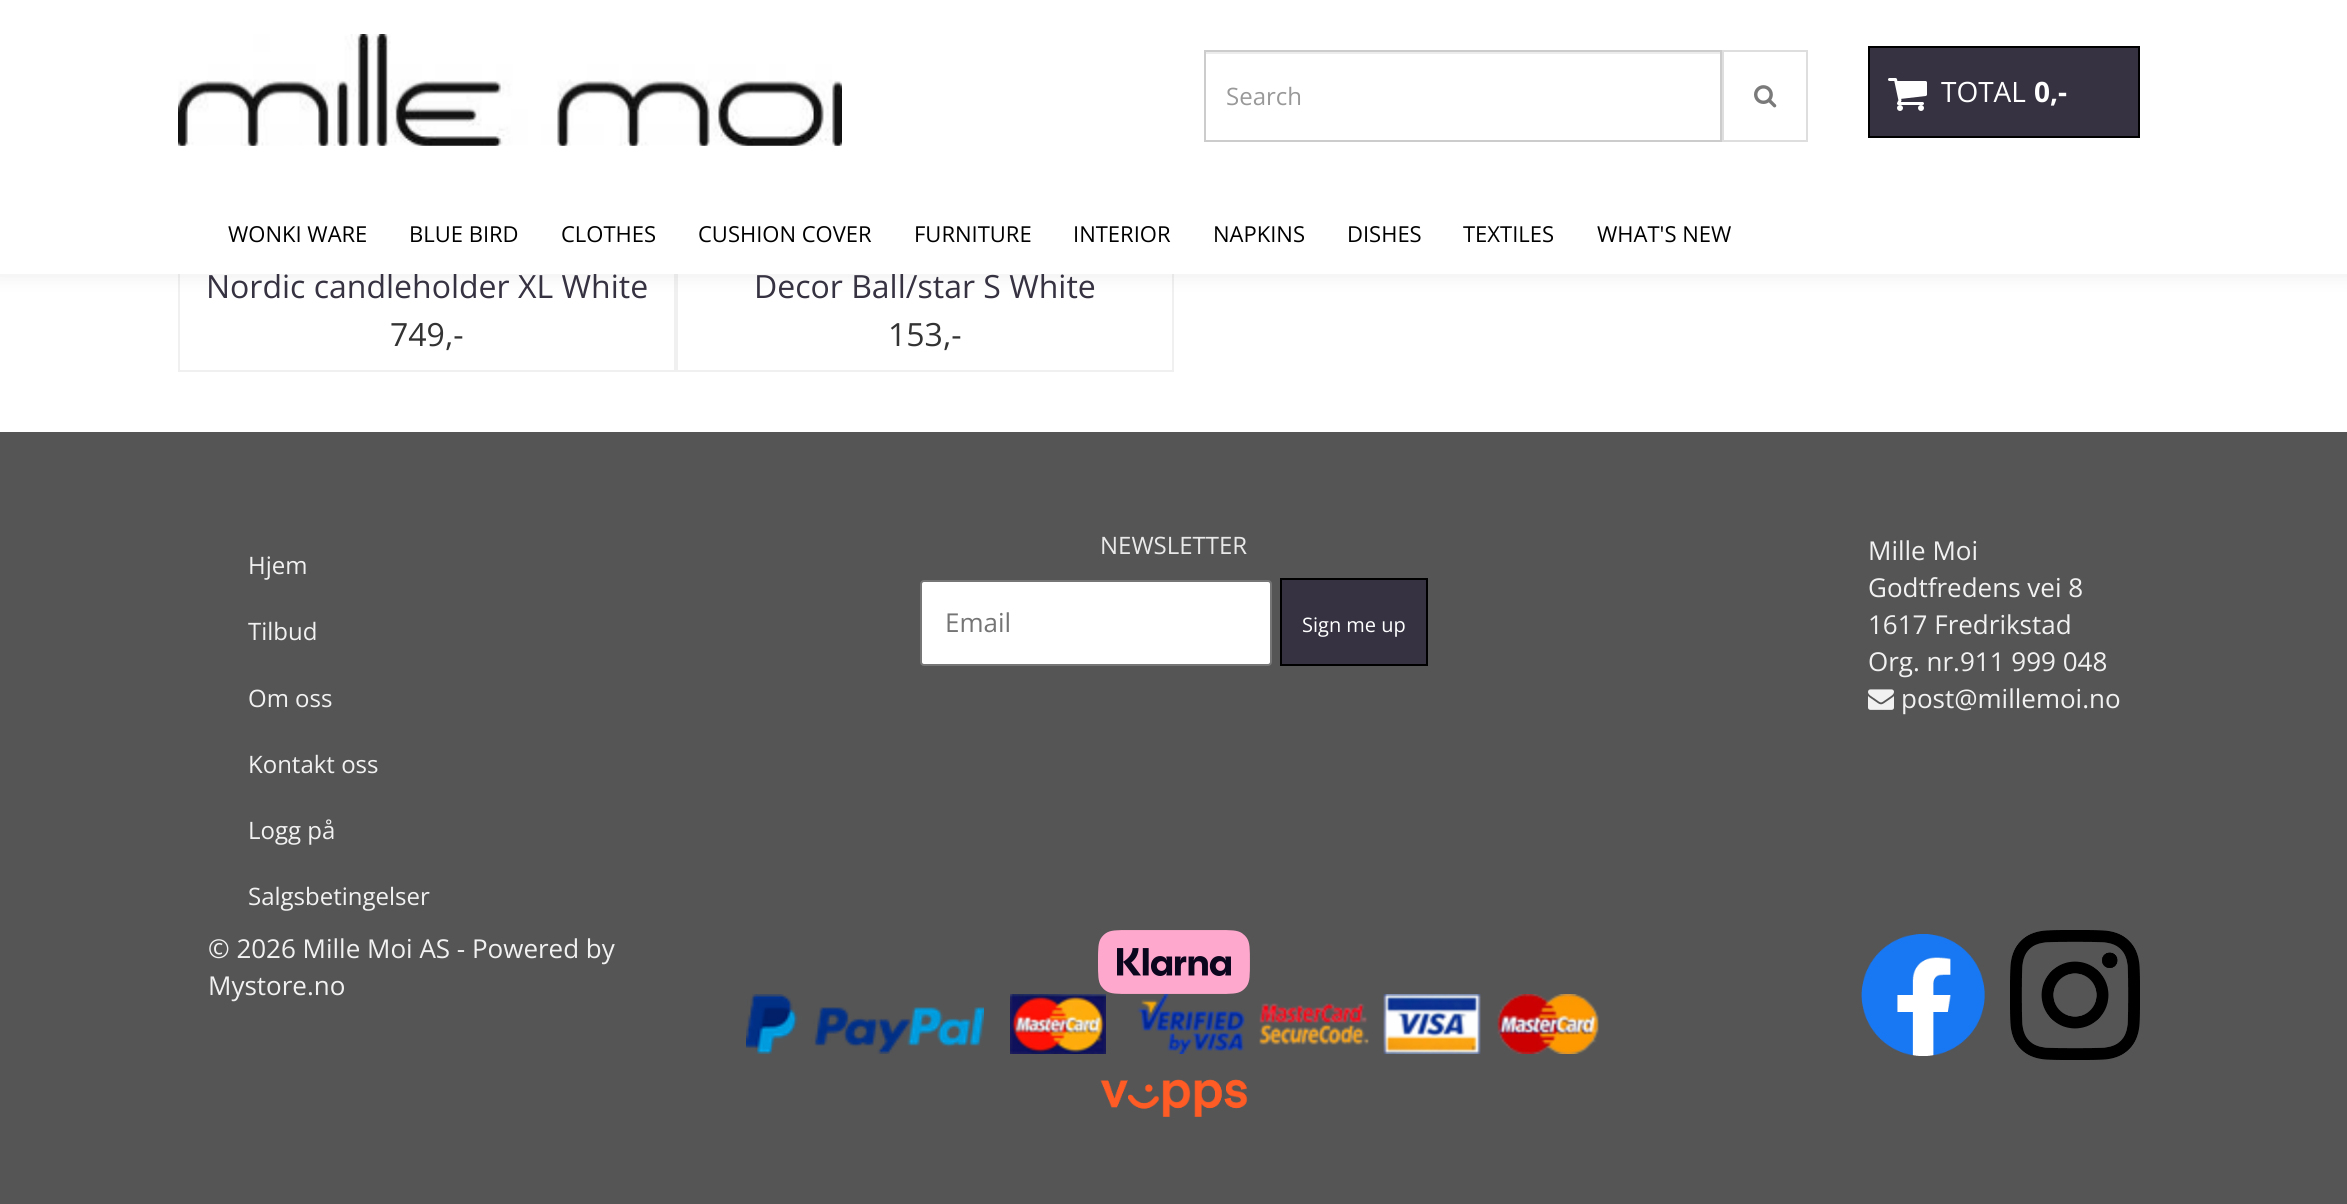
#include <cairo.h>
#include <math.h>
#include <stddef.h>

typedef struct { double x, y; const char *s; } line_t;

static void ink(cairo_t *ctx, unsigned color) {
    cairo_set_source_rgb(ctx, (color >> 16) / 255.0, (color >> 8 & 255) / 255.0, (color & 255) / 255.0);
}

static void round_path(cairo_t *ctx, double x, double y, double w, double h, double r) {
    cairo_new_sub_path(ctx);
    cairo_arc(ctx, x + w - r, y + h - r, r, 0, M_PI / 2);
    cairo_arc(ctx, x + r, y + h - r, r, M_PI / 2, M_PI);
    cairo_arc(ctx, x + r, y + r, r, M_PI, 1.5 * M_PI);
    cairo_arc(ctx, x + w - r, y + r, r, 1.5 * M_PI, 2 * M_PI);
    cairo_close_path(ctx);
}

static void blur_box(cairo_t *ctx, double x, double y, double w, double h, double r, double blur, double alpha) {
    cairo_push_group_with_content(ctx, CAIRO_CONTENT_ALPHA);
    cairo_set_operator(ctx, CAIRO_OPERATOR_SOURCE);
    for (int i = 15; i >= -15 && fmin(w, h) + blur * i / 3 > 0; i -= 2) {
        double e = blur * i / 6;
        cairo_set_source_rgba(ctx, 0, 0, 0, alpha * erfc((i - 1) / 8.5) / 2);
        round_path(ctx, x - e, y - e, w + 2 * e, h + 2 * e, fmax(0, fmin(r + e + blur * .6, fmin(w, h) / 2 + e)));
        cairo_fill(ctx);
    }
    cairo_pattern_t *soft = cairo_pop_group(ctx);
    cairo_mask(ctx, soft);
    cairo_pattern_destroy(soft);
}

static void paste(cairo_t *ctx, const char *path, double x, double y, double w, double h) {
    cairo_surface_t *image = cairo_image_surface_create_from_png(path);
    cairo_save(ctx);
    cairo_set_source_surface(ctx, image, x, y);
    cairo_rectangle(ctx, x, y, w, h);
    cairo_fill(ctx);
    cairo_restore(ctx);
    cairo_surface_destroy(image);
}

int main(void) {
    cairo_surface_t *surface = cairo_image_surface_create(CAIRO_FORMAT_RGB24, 2347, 1204);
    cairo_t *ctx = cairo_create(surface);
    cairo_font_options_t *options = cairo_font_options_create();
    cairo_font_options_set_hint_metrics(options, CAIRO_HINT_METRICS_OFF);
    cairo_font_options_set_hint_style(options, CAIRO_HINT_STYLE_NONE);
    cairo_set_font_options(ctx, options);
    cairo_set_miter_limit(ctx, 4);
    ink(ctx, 0xFFFFFF);
    cairo_paint(ctx);
    cairo_rectangle(ctx, 179, -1, 496, 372);
    ink(ctx, 0xF0F0F0);
    cairo_stroke(ctx);
    cairo_rectangle(ctx, 677, -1, 496, 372);
    cairo_stroke(ctx);
    ink(ctx, 0x000000);
    blur_box(ctx, -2, -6, 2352, 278, 0, 11, 0.1);
    cairo_select_font_face(ctx, "Open Sans", CAIRO_FONT_SLANT_NORMAL, CAIRO_FONT_WEIGHT_NORMAL);
    cairo_set_font_size(ctx, 32);
    ink(ctx, 0x363241);
    cairo_move_to(ctx, 206, 298);
    cairo_show_text(ctx, "Nordic candleholder XL White");
    cairo_move_to(ctx, 754, 298);
    cairo_show_text(ctx, "Decor Ball/star S White");
    ink(ctx, 0xFFFFFF);
    cairo_rectangle(ctx, 0, 0, 2347, 274);
    cairo_fill(ctx);
    paste(ctx, "media/1.png", 178, 34, 664, 112);
    ink(ctx, 0xECECEC);
    cairo_rectangle(ctx, 1206, 52, 514, 2);
    cairo_fill(ctx);
    cairo_rectangle(ctx, 1205, 51, 516, 90);
    ink(ctx, 0xCCCCCC);
    cairo_stroke(ctx);
    cairo_set_font_size(ctx, 24);
    ink(ctx, 0x999999);
    cairo_move_to(ctx, 1226, 105);
    cairo_show_text(ctx, "Search");
    cairo_rectangle(ctx, 1723, 51, 84, 90);
    ink(ctx, 0xDEDEDE);
    cairo_stroke(ctx);
    paste(ctx, "media/2.png", 1754, 85, 23, 23);
    ink(ctx, 0x363241);
    cairo_rectangle(ctx, 1869, 47, 270, 90);
    cairo_fill_preserve(ctx);
    ink(ctx, 0x000000);
    cairo_stroke(ctx);
    paste(ctx, "media/3.png", 1888, 78, 39, 33);
    cairo_set_font_size(ctx, 28);
    ink(ctx, 0xFFFFFF);
    cairo_move_to(ctx, 1941, 102);
    cairo_show_text(ctx, "TOTAL");
    cairo_select_font_face(ctx, "Open Sans", CAIRO_FONT_SLANT_NORMAL, CAIRO_FONT_WEIGHT_BOLD);
    cairo_move_to(ctx, 2034, 102);
    cairo_show_text(ctx, "0,-");
    cairo_select_font_face(ctx, "Open Sans", CAIRO_FONT_SLANT_NORMAL, CAIRO_FONT_WEIGHT_NORMAL);
    cairo_set_font_size(ctx, 22);
    ink(ctx, 0x000000);
    {
        static const line_t items[] = {
            {228, 242, "WONKI WARE"},
            {409, 242, "BLUE BIRD"},
            {561, 242, "CLOTHES"},
            {698, 242, "CUSHION COVER"},
            {914, 242, "FURNITURE"},
            {1073, 242, "INTERIOR"},
            {1213, 242, "NAPKINS"},
            {1347, 242, "DISHES"},
            {1463, 242, "TEXTILES"},
            {1597, 242, "WHAT'S NEW"},
        };
        for (size_t i = 0; i < sizeof items / sizeof *items; i++) {
            cairo_move_to(ctx, items[i].x, items[i].y);
            cairo_show_text(ctx, items[i].s);
        }
    }
    cairo_set_font_size(ctx, 32);
    ink(ctx, 0x333333);
    cairo_move_to(ctx, 390, 346);
    cairo_show_text(ctx, "749,-");
    cairo_move_to(ctx, 888, 346);
    cairo_show_text(ctx, "153,-");
    ink(ctx, 0x555555);
    cairo_rectangle(ctx, 0, 432, 2347, 772);
    cairo_fill(ctx);
    cairo_set_font_size(ctx, 24);
    ink(ctx, 0xF1F1F1);
    {
        static const line_t items[] = {
            {248, 574, "Hjem"},
            {248, 640, "Tilbud"},
            {248, 707, "Om oss"},
            {248, 773, "Kontakt oss"},
            {248, 839, "Logg på"},
            {248, 905, "Salgsbetingelser"},
        };
        for (size_t i = 0; i < sizeof items / sizeof *items; i++) {
            cairo_move_to(ctx, items[i].x, items[i].y);
            cairo_show_text(ctx, items[i].s);
        }
    }
    ink(ctx, 0xE9E9E9);
    cairo_move_to(ctx, 1100, 554);
    cairo_show_text(ctx, "NEWSLETTER");
    ink(ctx, 0xFFFFFF);
    round_path(ctx, 921, 581, 350, 84, 3);
    cairo_fill_preserve(ctx);
    ink(ctx, 0x767676);
    cairo_stroke(ctx);
    cairo_set_font_size(ctx, 26);
    ink(ctx, 0x757575);
    cairo_move_to(ctx, 945, 632);
    cairo_show_text(ctx, "Email");
    ink(ctx, 0x363241);
    cairo_rectangle(ctx, 1281, 579, 146, 86);
    cairo_fill_preserve(ctx);
    ink(ctx, 0x000000);
    cairo_stroke(ctx);
    cairo_set_font_size(ctx, 20);
    ink(ctx, 0xFFFFFF);
    cairo_move_to(ctx, 1302, 632);
    cairo_show_text(ctx, "Sign me up");
    cairo_set_font_size(ctx, 26);
    ink(ctx, 0xF1F1F1);
    {
        static const line_t items[] = {
            {1868, 560, "Mille Moi"},
            {1868, 597, "Godtfredens vei 8"},
            {1868, 634, "1617 Fredrikstad"},
            {1868, 671, "Org. nr.911 999 048"},
        };
        for (size_t i = 0; i < sizeof items / sizeof *items; i++) {
            cairo_move_to(ctx, items[i].x, items[i].y);
            cairo_show_text(ctx, items[i].s);
        }
    }
    paste(ctx, "media/4.png", 1868, 689, 26, 21);
    {
        static const line_t items[] = {
            {1901, 708, "post@millemoi.no"},
            {208, 958, "© 2026 Mille Moi AS - Powered by"},
            {208, 995, "Mystore.no"},
        };
        for (size_t i = 0; i < sizeof items / sizeof *items; i++) {
            cairo_move_to(ctx, items[i].x, items[i].y);
            cairo_show_text(ctx, items[i].s);
        }
    }
    paste(ctx, "media/5.png", 1098, 930, 152, 64);
    paste(ctx, "media/6.png", 746, 994, 238, 60);
    paste(ctx, "media/7.png", 1010, 994, 96, 60);
    paste(ctx, "media/8.png", 1137, 994, 462, 60);
    paste(ctx, "media/9.png", 1100, 1079, 148, 38);
    paste(ctx, "media/10.png", 1861, 934, 124, 122);
    paste(ctx, "media/11.png", 2010, 930, 130, 130);
    cairo_surface_write_to_png(surface, "image.png");
    cairo_font_options_destroy(options);
    cairo_destroy(ctx);
    cairo_surface_destroy(surface);
    return 0;
}
